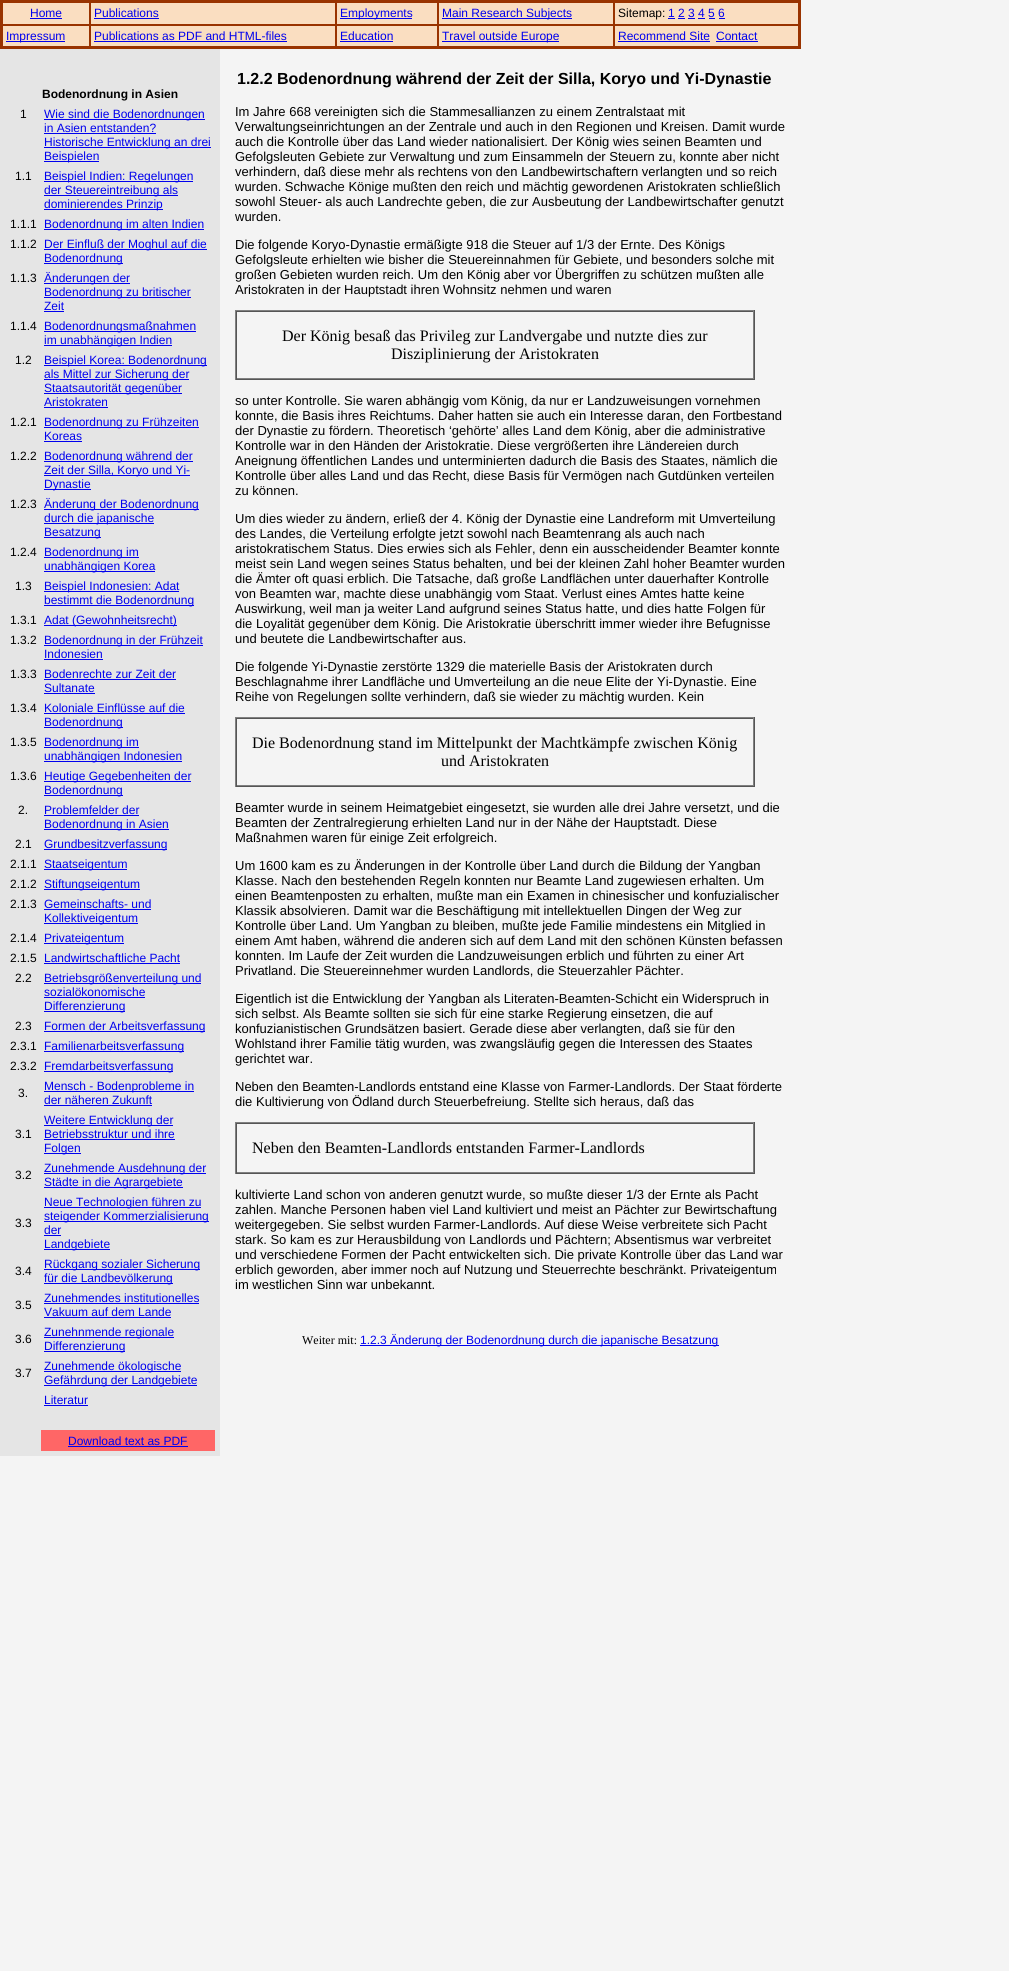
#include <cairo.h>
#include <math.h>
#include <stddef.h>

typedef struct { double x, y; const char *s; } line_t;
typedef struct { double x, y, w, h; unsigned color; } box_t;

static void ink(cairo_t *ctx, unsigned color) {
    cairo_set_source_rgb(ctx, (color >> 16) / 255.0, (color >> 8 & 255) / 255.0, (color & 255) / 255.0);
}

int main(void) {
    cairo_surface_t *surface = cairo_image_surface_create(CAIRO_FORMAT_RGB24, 1009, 1971);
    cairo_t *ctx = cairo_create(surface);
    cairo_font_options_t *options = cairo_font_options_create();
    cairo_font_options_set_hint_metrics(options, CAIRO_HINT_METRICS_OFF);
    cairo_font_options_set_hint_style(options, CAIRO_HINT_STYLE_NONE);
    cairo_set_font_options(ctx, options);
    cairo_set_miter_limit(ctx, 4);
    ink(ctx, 0xF4F4F4);
    cairo_paint(ctx);
    ink(ctx, 0xFADEC1);
    cairo_rectangle(ctx, 3, 3, 795, 43);
    cairo_fill(ctx);
    cairo_rectangle(ctx, 1, 1, 799, 47);
    ink(ctx, 0x993300);
    cairo_stroke(ctx);
    cairo_rectangle(ctx, 2.5, 2.5, 87, 22);
    cairo_set_line_width(ctx, 1);
    cairo_stroke(ctx);
    cairo_select_font_face(ctx, "Liberation Sans", CAIRO_FONT_SLANT_NORMAL, CAIRO_FONT_WEIGHT_NORMAL);
    cairo_set_font_size(ctx, 12);
    ink(ctx, 0x0000EE);
    cairo_move_to(ctx, 30, 17);
    cairo_show_text(ctx, "Home");
    cairo_rectangle(ctx, 30, 18, 32, 1);
    cairo_fill(ctx);
    cairo_rectangle(ctx, 90.5, 2.5, 245, 22);
    ink(ctx, 0x993300);
    cairo_stroke(ctx);
    ink(ctx, 0x0000EE);
    cairo_move_to(ctx, 94, 17);
    cairo_show_text(ctx, "Publications");
    cairo_rectangle(ctx, 94, 18, 65, 1);
    cairo_fill(ctx);
    cairo_rectangle(ctx, 336.5, 2.5, 101, 22);
    ink(ctx, 0x993300);
    cairo_stroke(ctx);
    ink(ctx, 0x0000EE);
    cairo_rectangle(ctx, 340, 18, 72, 1);
    cairo_fill(ctx);
    cairo_move_to(ctx, 340, 17);
    cairo_show_text(ctx, "Employments");
    cairo_rectangle(ctx, 438.5, 2.5, 175, 22);
    ink(ctx, 0x993300);
    cairo_stroke(ctx);
    ink(ctx, 0x0000EE);
    cairo_rectangle(ctx, 442, 18, 130, 1);
    cairo_fill(ctx);
    cairo_move_to(ctx, 442, 17);
    cairo_show_text(ctx, "Main Research Subjects");
    cairo_rectangle(ctx, 614.5, 2.5, 184, 22);
    ink(ctx, 0x993300);
    cairo_stroke(ctx);
    ink(ctx, 0x000000);
    cairo_move_to(ctx, 618, 17);
    cairo_show_text(ctx, "Sitemap:");
    ink(ctx, 0x0000EE);
    cairo_move_to(ctx, 668, 17);
    cairo_show_text(ctx, "1 2 3 4 5 6");
    {
        static const box_t items[] = {
            {668, 18, 7, 1, 0x0000EE},
            {678, 18, 7, 1, 0x0000EE},
            {688, 18, 7, 1, 0x0000EE},
            {698, 18, 7, 1, 0x0000EE},
            {709, 18, 6, 1, 0x0000EE},
            {719, 18, 6, 1, 0x0000EE},
        };
        for (size_t i = 0; i < sizeof items / sizeof *items; i++) {
            ink(ctx, items[i].color);
            cairo_rectangle(ctx, items[i].x, items[i].y, items[i].w, items[i].h);
            cairo_fill(ctx);
        }
    }
    cairo_rectangle(ctx, 2.5, 25.5, 87, 21);
    ink(ctx, 0x993300);
    cairo_stroke(ctx);
    ink(ctx, 0x0000EE);
    cairo_rectangle(ctx, 6, 41, 59, 1);
    cairo_fill(ctx);
    cairo_move_to(ctx, 6, 40);
    cairo_show_text(ctx, "Impressum");
    cairo_rectangle(ctx, 90.5, 25.5, 245, 21);
    ink(ctx, 0x993300);
    cairo_stroke(ctx);
    ink(ctx, 0x0000EE);
    cairo_move_to(ctx, 94, 40);
    cairo_show_text(ctx, "Publications as PDF and HTML-files");
    cairo_rectangle(ctx, 94, 41, 193, 1);
    cairo_fill(ctx);
    cairo_rectangle(ctx, 336.5, 25.5, 101, 21);
    ink(ctx, 0x993300);
    cairo_stroke(ctx);
    ink(ctx, 0x0000EE);
    cairo_move_to(ctx, 340, 40);
    cairo_show_text(ctx, "Education");
    cairo_rectangle(ctx, 340, 41, 53, 1);
    cairo_fill(ctx);
    cairo_rectangle(ctx, 438.5, 25.5, 175, 21);
    ink(ctx, 0x993300);
    cairo_stroke(ctx);
    ink(ctx, 0x0000EE);
    cairo_rectangle(ctx, 442, 41, 117, 1);
    cairo_fill(ctx);
    cairo_move_to(ctx, 442, 40);
    cairo_show_text(ctx, "Travel outside Europe");
    cairo_rectangle(ctx, 614.5, 25.5, 184, 21);
    ink(ctx, 0x993300);
    cairo_stroke(ctx);
    ink(ctx, 0x0000EE);
    cairo_move_to(ctx, 618, 40);
    cairo_show_text(ctx, "Recommend Site");
    cairo_rectangle(ctx, 618, 41, 92, 1);
    cairo_fill(ctx);
    cairo_move_to(ctx, 716, 40);
    cairo_show_text(ctx, "Contact");
    cairo_rectangle(ctx, 716, 41, 42, 1);
    cairo_fill(ctx);
    ink(ctx, 0xE5E5E5);
    cairo_rectangle(ctx, 0, 49, 220, 1407);
    cairo_fill(ctx);
    cairo_select_font_face(ctx, "Liberation Sans", CAIRO_FONT_SLANT_NORMAL, CAIRO_FONT_WEIGHT_BOLD);
    ink(ctx, 0x000000);
    cairo_move_to(ctx, 42, 98);
    cairo_show_text(ctx, "Bodenordnung in Asien");
    cairo_select_font_face(ctx, "Liberation Sans", CAIRO_FONT_SLANT_NORMAL, CAIRO_FONT_WEIGHT_NORMAL);
    cairo_move_to(ctx, 20, 118);
    cairo_show_text(ctx, "1");
    ink(ctx, 0x0000EE);
    cairo_rectangle(ctx, 44, 119, 161, 1);
    cairo_fill(ctx);
    cairo_move_to(ctx, 44, 118);
    cairo_show_text(ctx, "Wie sind die Bodenordnungen");
    cairo_move_to(ctx, 44, 132);
    cairo_show_text(ctx, "in Asien entstanden?");
    cairo_rectangle(ctx, 44, 133, 112, 1);
    cairo_fill(ctx);
    cairo_rectangle(ctx, 44, 147, 167, 1);
    cairo_fill(ctx);
    cairo_move_to(ctx, 44, 146);
    cairo_show_text(ctx, "Historische Entwicklung an drei");
    cairo_rectangle(ctx, 44, 161, 55, 1);
    cairo_fill(ctx);
    cairo_move_to(ctx, 44, 160);
    cairo_show_text(ctx, "Beispielen");
    ink(ctx, 0x000000);
    cairo_move_to(ctx, 15, 180);
    cairo_show_text(ctx, "1.1");
    ink(ctx, 0x0000EE);
    cairo_rectangle(ctx, 44, 181, 149, 1);
    cairo_fill(ctx);
    cairo_move_to(ctx, 44, 180);
    cairo_show_text(ctx, "Beispiel Indien: Regelungen");
    cairo_rectangle(ctx, 44, 195, 134, 1);
    cairo_fill(ctx);
    cairo_move_to(ctx, 44, 194);
    cairo_show_text(ctx, "der Steuereintreibung als");
    cairo_rectangle(ctx, 44, 209, 119, 1);
    cairo_fill(ctx);
    cairo_move_to(ctx, 44, 208);
    cairo_show_text(ctx, "dominierendes Prinzip");
    ink(ctx, 0x000000);
    cairo_move_to(ctx, 10, 228);
    cairo_show_text(ctx, "1.1.1");
    ink(ctx, 0x0000EE);
    cairo_rectangle(ctx, 44, 229, 160, 1);
    cairo_fill(ctx);
    cairo_move_to(ctx, 44, 228);
    cairo_show_text(ctx, "Bodenordnung im alten Indien");
    ink(ctx, 0x000000);
    cairo_move_to(ctx, 10, 248);
    cairo_show_text(ctx, "1.1.2");
    ink(ctx, 0x0000EE);
    cairo_rectangle(ctx, 44, 249, 163, 1);
    cairo_fill(ctx);
    cairo_move_to(ctx, 44, 248);
    cairo_show_text(ctx, "Der Einfluß der Moghul auf die");
    cairo_rectangle(ctx, 44, 263, 79, 1);
    cairo_fill(ctx);
    cairo_move_to(ctx, 44, 262);
    cairo_show_text(ctx, "Bodenordnung");
    ink(ctx, 0x000000);
    cairo_move_to(ctx, 10, 282);
    cairo_show_text(ctx, "1.1.3");
    ink(ctx, 0x0000EE);
    cairo_rectangle(ctx, 44, 283, 86, 1);
    cairo_fill(ctx);
    cairo_move_to(ctx, 44, 282);
    cairo_show_text(ctx, "Änderungen der");
    cairo_rectangle(ctx, 44, 297, 147, 1);
    cairo_fill(ctx);
    cairo_move_to(ctx, 44, 296);
    cairo_show_text(ctx, "Bodenordnung zu britischer");
    cairo_move_to(ctx, 44, 310);
    cairo_show_text(ctx, "Zeit");
    cairo_rectangle(ctx, 44, 311, 20, 1);
    cairo_fill(ctx);
    ink(ctx, 0x000000);
    cairo_move_to(ctx, 10, 330);
    cairo_show_text(ctx, "1.1.4");
    ink(ctx, 0x0000EE);
    cairo_rectangle(ctx, 44, 331, 152, 1);
    cairo_fill(ctx);
    cairo_move_to(ctx, 44, 330);
    cairo_show_text(ctx, "Bodenordnungsmaßnahmen");
    cairo_rectangle(ctx, 44, 345, 128, 1);
    cairo_fill(ctx);
    cairo_move_to(ctx, 44, 344);
    cairo_show_text(ctx, "im unabhängigen Indien");
    ink(ctx, 0x000000);
    cairo_move_to(ctx, 15, 364);
    cairo_show_text(ctx, "1.2");
    ink(ctx, 0x0000EE);
    cairo_rectangle(ctx, 44, 365, 163, 1);
    cairo_fill(ctx);
    cairo_move_to(ctx, 44, 364);
    cairo_show_text(ctx, "Beispiel Korea: Bodenordnung");
    cairo_rectangle(ctx, 44, 379, 145, 1);
    cairo_fill(ctx);
    cairo_move_to(ctx, 44, 378);
    cairo_show_text(ctx, "als Mittel zur Sicherung der");
    cairo_rectangle(ctx, 44, 393, 138, 1);
    cairo_fill(ctx);
    cairo_move_to(ctx, 44, 392);
    cairo_show_text(ctx, "Staatsautorität gegenüber");
    cairo_move_to(ctx, 44, 406);
    cairo_show_text(ctx, "Aristokraten");
    cairo_rectangle(ctx, 44, 407, 64, 1);
    cairo_fill(ctx);
    ink(ctx, 0x000000);
    cairo_move_to(ctx, 10, 426);
    cairo_show_text(ctx, "1.2.1");
    ink(ctx, 0x0000EE);
    cairo_rectangle(ctx, 44, 427, 155, 1);
    cairo_fill(ctx);
    cairo_move_to(ctx, 44, 426);
    cairo_show_text(ctx, "Bodenordnung zu Frühzeiten");
    cairo_move_to(ctx, 44, 440);
    cairo_show_text(ctx, "Koreas");
    cairo_rectangle(ctx, 44, 441, 38, 1);
    cairo_fill(ctx);
    ink(ctx, 0x000000);
    cairo_move_to(ctx, 10, 460);
    cairo_show_text(ctx, "1.2.2");
    ink(ctx, 0x0000EE);
    cairo_rectangle(ctx, 44, 461, 149, 1);
    cairo_fill(ctx);
    cairo_move_to(ctx, 44, 460);
    cairo_show_text(ctx, "Bodenordnung während der");
    cairo_rectangle(ctx, 44, 475, 146, 1);
    cairo_fill(ctx);
    cairo_move_to(ctx, 44, 474);
    cairo_show_text(ctx, "Zeit der Silla, Koryo und Yi-");
    cairo_rectangle(ctx, 44, 489, 47, 1);
    cairo_fill(ctx);
    cairo_move_to(ctx, 44, 488);
    cairo_show_text(ctx, "Dynastie");
    ink(ctx, 0x000000);
    cairo_move_to(ctx, 10, 508);
    cairo_show_text(ctx, "1.2.3");
    ink(ctx, 0x0000EE);
    cairo_rectangle(ctx, 44, 509, 155, 1);
    cairo_fill(ctx);
    cairo_move_to(ctx, 44, 508);
    cairo_show_text(ctx, "Änderung der Bodenordnung");
    cairo_rectangle(ctx, 44, 523, 110, 1);
    cairo_fill(ctx);
    cairo_move_to(ctx, 44, 522);
    cairo_show_text(ctx, "durch die japanische");
    cairo_rectangle(ctx, 44, 537, 57, 1);
    cairo_fill(ctx);
    cairo_move_to(ctx, 44, 536);
    cairo_show_text(ctx, "Besatzung");
    ink(ctx, 0x000000);
    cairo_move_to(ctx, 10, 556);
    cairo_show_text(ctx, "1.2.4");
    ink(ctx, 0x0000EE);
    cairo_rectangle(ctx, 44, 557, 95, 1);
    cairo_fill(ctx);
    cairo_move_to(ctx, 44, 556);
    cairo_show_text(ctx, "Bodenordnung im");
    cairo_rectangle(ctx, 44, 571, 111, 1);
    cairo_fill(ctx);
    cairo_move_to(ctx, 44, 570);
    cairo_show_text(ctx, "unabhängigen Korea");
    ink(ctx, 0x000000);
    cairo_move_to(ctx, 15, 590);
    cairo_show_text(ctx, "1.3");
    ink(ctx, 0x0000EE);
    cairo_rectangle(ctx, 44, 591, 135, 1);
    cairo_fill(ctx);
    cairo_move_to(ctx, 44, 590);
    cairo_show_text(ctx, "Beispiel Indonesien: Adat");
    cairo_rectangle(ctx, 44, 605, 150, 1);
    cairo_fill(ctx);
    cairo_move_to(ctx, 44, 604);
    cairo_show_text(ctx, "bestimmt die Bodenordnung");
    ink(ctx, 0x000000);
    cairo_move_to(ctx, 10, 624);
    cairo_show_text(ctx, "1.3.1");
    ink(ctx, 0x0000EE);
    cairo_rectangle(ctx, 44, 625, 133, 1);
    cairo_fill(ctx);
    cairo_move_to(ctx, 44, 624);
    cairo_show_text(ctx, "Adat (Gewohnheitsrecht)");
    ink(ctx, 0x000000);
    cairo_move_to(ctx, 10, 644);
    cairo_show_text(ctx, "1.3.2");
    ink(ctx, 0x0000EE);
    cairo_rectangle(ctx, 44, 645, 159, 1);
    cairo_fill(ctx);
    cairo_move_to(ctx, 44, 644);
    cairo_show_text(ctx, "Bodenordnung in der Frühzeit");
    cairo_move_to(ctx, 44, 658);
    cairo_show_text(ctx, "Indonesien");
    cairo_rectangle(ctx, 44, 659, 59, 1);
    cairo_fill(ctx);
    ink(ctx, 0x000000);
    cairo_move_to(ctx, 10, 678);
    cairo_show_text(ctx, "1.3.3");
    ink(ctx, 0x0000EE);
    cairo_move_to(ctx, 44, 678);
    cairo_show_text(ctx, "Bodenrechte zur Zeit der");
    cairo_rectangle(ctx, 44, 679, 132, 1);
    cairo_fill(ctx);
    cairo_move_to(ctx, 44, 692);
    cairo_show_text(ctx, "Sultanate");
    cairo_rectangle(ctx, 44, 693, 51, 1);
    cairo_fill(ctx);
    ink(ctx, 0x000000);
    cairo_move_to(ctx, 10, 712);
    cairo_show_text(ctx, "1.3.4");
    ink(ctx, 0x0000EE);
    cairo_move_to(ctx, 44, 712);
    cairo_show_text(ctx, "Koloniale Einflüsse auf die");
    cairo_rectangle(ctx, 44, 713, 141, 1);
    cairo_fill(ctx);
    cairo_rectangle(ctx, 44, 727, 79, 1);
    cairo_fill(ctx);
    cairo_move_to(ctx, 44, 726);
    cairo_show_text(ctx, "Bodenordnung");
    ink(ctx, 0x000000);
    cairo_move_to(ctx, 10, 746);
    cairo_show_text(ctx, "1.3.5");
    ink(ctx, 0x0000EE);
    cairo_rectangle(ctx, 44, 747, 95, 1);
    cairo_fill(ctx);
    cairo_move_to(ctx, 44, 746);
    cairo_show_text(ctx, "Bodenordnung im");
    cairo_rectangle(ctx, 44, 761, 138, 1);
    cairo_fill(ctx);
    cairo_move_to(ctx, 44, 760);
    cairo_show_text(ctx, "unabhängigen Indonesien");
    ink(ctx, 0x000000);
    cairo_move_to(ctx, 10, 780);
    cairo_show_text(ctx, "1.3.6");
    ink(ctx, 0x0000EE);
    cairo_rectangle(ctx, 44, 781, 147, 1);
    cairo_fill(ctx);
    cairo_move_to(ctx, 44, 780);
    cairo_show_text(ctx, "Heutige Gegebenheiten der");
    cairo_rectangle(ctx, 44, 795, 79, 1);
    cairo_fill(ctx);
    cairo_move_to(ctx, 44, 794);
    cairo_show_text(ctx, "Bodenordnung");
    ink(ctx, 0x000000);
    cairo_move_to(ctx, 18, 814);
    cairo_show_text(ctx, "2.");
    ink(ctx, 0x0000EE);
    cairo_move_to(ctx, 44, 814);
    cairo_show_text(ctx, "Problemfelder der");
    cairo_rectangle(ctx, 44, 815, 95, 1);
    cairo_fill(ctx);
    cairo_rectangle(ctx, 44, 829, 125, 1);
    cairo_fill(ctx);
    cairo_move_to(ctx, 44, 828);
    cairo_show_text(ctx, "Bodenordnung in Asien");
    ink(ctx, 0x000000);
    cairo_move_to(ctx, 15, 848);
    cairo_show_text(ctx, "2.1");
    ink(ctx, 0x0000EE);
    cairo_rectangle(ctx, 44, 849, 123, 1);
    cairo_fill(ctx);
    cairo_move_to(ctx, 44, 848);
    cairo_show_text(ctx, "Grundbesitzverfassung");
    ink(ctx, 0x000000);
    cairo_move_to(ctx, 10, 868);
    cairo_show_text(ctx, "2.1.1");
    ink(ctx, 0x0000EE);
    cairo_rectangle(ctx, 44, 869, 83, 1);
    cairo_fill(ctx);
    cairo_move_to(ctx, 44, 868);
    cairo_show_text(ctx, "Staatseigentum");
    ink(ctx, 0x000000);
    cairo_move_to(ctx, 10, 888);
    cairo_show_text(ctx, "2.1.2");
    ink(ctx, 0x0000EE);
    cairo_rectangle(ctx, 44, 889, 96, 1);
    cairo_fill(ctx);
    cairo_move_to(ctx, 44, 888);
    cairo_show_text(ctx, "Stiftungseigentum");
    ink(ctx, 0x000000);
    cairo_move_to(ctx, 10, 908);
    cairo_show_text(ctx, "2.1.3");
    ink(ctx, 0x0000EE);
    cairo_move_to(ctx, 44, 908);
    cairo_show_text(ctx, "Gemeinschafts- und");
    cairo_rectangle(ctx, 44, 909, 107, 1);
    cairo_fill(ctx);
    cairo_rectangle(ctx, 44, 923, 94, 1);
    cairo_fill(ctx);
    cairo_move_to(ctx, 44, 922);
    cairo_show_text(ctx, "Kollektiveigentum");
    ink(ctx, 0x000000);
    cairo_move_to(ctx, 10, 942);
    cairo_show_text(ctx, "2.1.4");
    ink(ctx, 0x0000EE);
    cairo_rectangle(ctx, 44, 943, 80, 1);
    cairo_fill(ctx);
    cairo_move_to(ctx, 44, 942);
    cairo_show_text(ctx, "Privateigentum");
    ink(ctx, 0x000000);
    cairo_move_to(ctx, 10, 962);
    cairo_show_text(ctx, "2.1.5");
    ink(ctx, 0x0000EE);
    cairo_move_to(ctx, 44, 962);
    cairo_show_text(ctx, "Landwirtschaftliche Pacht");
    cairo_rectangle(ctx, 44, 963, 136, 1);
    cairo_fill(ctx);
    ink(ctx, 0x000000);
    cairo_move_to(ctx, 15, 982);
    cairo_show_text(ctx, "2.2");
    ink(ctx, 0x0000EE);
    cairo_rectangle(ctx, 44, 983, 157, 1);
    cairo_fill(ctx);
    cairo_move_to(ctx, 44, 982);
    cairo_show_text(ctx, "Betriebsgrößenverteilung und");
    cairo_move_to(ctx, 44, 996);
    cairo_show_text(ctx, "sozialökonomische");
    cairo_rectangle(ctx, 44, 997, 101, 1);
    cairo_fill(ctx);
    cairo_rectangle(ctx, 44, 1011, 81, 1);
    cairo_fill(ctx);
    cairo_move_to(ctx, 44, 1010);
    cairo_show_text(ctx, "Differenzierung");
    ink(ctx, 0x000000);
    cairo_move_to(ctx, 15, 1030);
    cairo_show_text(ctx, "2.3");
    ink(ctx, 0x0000EE);
    cairo_rectangle(ctx, 44, 1031, 161, 1);
    cairo_fill(ctx);
    cairo_move_to(ctx, 44, 1030);
    cairo_show_text(ctx, "Formen der Arbeitsverfassung");
    ink(ctx, 0x000000);
    cairo_move_to(ctx, 10, 1050);
    cairo_show_text(ctx, "2.3.1");
    ink(ctx, 0x0000EE);
    cairo_rectangle(ctx, 44, 1051, 140, 1);
    cairo_fill(ctx);
    cairo_move_to(ctx, 44, 1050);
    cairo_show_text(ctx, "Familienarbeitsverfassung");
    ink(ctx, 0x000000);
    cairo_move_to(ctx, 10, 1070);
    cairo_show_text(ctx, "2.3.2");
    ink(ctx, 0x0000EE);
    cairo_rectangle(ctx, 44, 1071, 129, 1);
    cairo_fill(ctx);
    cairo_move_to(ctx, 44, 1070);
    cairo_show_text(ctx, "Fremdarbeitsverfassung");
    ink(ctx, 0x000000);
    cairo_move_to(ctx, 18, 1097);
    cairo_show_text(ctx, "3.");
    ink(ctx, 0x0000EE);
    cairo_rectangle(ctx, 44, 1091, 150, 1);
    cairo_fill(ctx);
    cairo_move_to(ctx, 44, 1090);
    cairo_show_text(ctx, "Mensch - Bodenprobleme in");
    cairo_move_to(ctx, 44, 1104);
    cairo_show_text(ctx, "der näheren Zukunft");
    cairo_rectangle(ctx, 44, 1105, 108, 1);
    cairo_fill(ctx);
    ink(ctx, 0x000000);
    cairo_move_to(ctx, 15, 1138);
    cairo_show_text(ctx, "3.1");
    ink(ctx, 0x0000EE);
    cairo_rectangle(ctx, 44, 1125, 129, 1);
    cairo_fill(ctx);
    cairo_move_to(ctx, 44, 1124);
    cairo_show_text(ctx, "Weitere Entwicklung der");
    cairo_move_to(ctx, 44, 1138);
    cairo_show_text(ctx, "Betriebsstruktur und ihre");
    cairo_rectangle(ctx, 44, 1139, 131, 1);
    cairo_fill(ctx);
    cairo_rectangle(ctx, 44, 1153, 37, 1);
    cairo_fill(ctx);
    cairo_move_to(ctx, 44, 1152);
    cairo_show_text(ctx, "Folgen");
    ink(ctx, 0x000000);
    cairo_move_to(ctx, 15, 1179);
    cairo_show_text(ctx, "3.2");
    ink(ctx, 0x0000EE);
    cairo_rectangle(ctx, 44, 1173, 162, 1);
    cairo_fill(ctx);
    cairo_move_to(ctx, 44, 1172);
    cairo_show_text(ctx, "Zunehmende Ausdehnung der");
    cairo_rectangle(ctx, 44, 1187, 139, 1);
    cairo_fill(ctx);
    cairo_move_to(ctx, 44, 1186);
    cairo_show_text(ctx, "Städte in die Agrargebiete");
    ink(ctx, 0x000000);
    cairo_move_to(ctx, 15, 1227);
    cairo_show_text(ctx, "3.3");
    ink(ctx, 0x0000EE);
    cairo_rectangle(ctx, 44, 1207, 157, 1);
    cairo_fill(ctx);
    cairo_move_to(ctx, 44, 1206);
    cairo_show_text(ctx, "Neue Technologien führen zu");
    cairo_rectangle(ctx, 44, 1221, 165, 1);
    cairo_fill(ctx);
    cairo_move_to(ctx, 44, 1220);
    cairo_show_text(ctx, "steigender Kommerzialisierung");
    cairo_move_to(ctx, 44, 1234);
    cairo_show_text(ctx, "der");
    cairo_rectangle(ctx, 44, 1235, 17, 1);
    cairo_fill(ctx);
    cairo_rectangle(ctx, 44, 1249, 66, 1);
    cairo_fill(ctx);
    cairo_move_to(ctx, 44, 1248);
    cairo_show_text(ctx, "Landgebiete");
    ink(ctx, 0x000000);
    cairo_move_to(ctx, 15, 1275);
    cairo_show_text(ctx, "3.4");
    ink(ctx, 0x0000EE);
    cairo_rectangle(ctx, 44, 1269, 156, 1);
    cairo_fill(ctx);
    cairo_move_to(ctx, 44, 1268);
    cairo_show_text(ctx, "Rückgang sozialer Sicherung");
    cairo_rectangle(ctx, 44, 1283, 129, 1);
    cairo_fill(ctx);
    cairo_move_to(ctx, 44, 1282);
    cairo_show_text(ctx, "für die Landbevölkerung");
    ink(ctx, 0x000000);
    cairo_move_to(ctx, 15, 1309);
    cairo_show_text(ctx, "3.5");
    ink(ctx, 0x0000EE);
    cairo_move_to(ctx, 44, 1302);
    cairo_show_text(ctx, "Zunehmendes institutionelles");
    cairo_rectangle(ctx, 44, 1303, 155, 1);
    cairo_fill(ctx);
    cairo_move_to(ctx, 44, 1316);
    cairo_show_text(ctx, "Vakuum auf dem Lande");
    cairo_rectangle(ctx, 44, 1317, 127, 1);
    cairo_fill(ctx);
    ink(ctx, 0x000000);
    cairo_move_to(ctx, 15, 1343);
    cairo_show_text(ctx, "3.6");
    ink(ctx, 0x0000EE);
    cairo_rectangle(ctx, 44, 1337, 130, 1);
    cairo_fill(ctx);
    cairo_move_to(ctx, 44, 1336);
    cairo_show_text(ctx, "Zunehnmende regionale");
    cairo_rectangle(ctx, 44, 1351, 81, 1);
    cairo_fill(ctx);
    cairo_move_to(ctx, 44, 1350);
    cairo_show_text(ctx, "Differenzierung");
    ink(ctx, 0x000000);
    cairo_move_to(ctx, 15, 1377);
    cairo_show_text(ctx, "3.7");
    ink(ctx, 0x0000EE);
    cairo_rectangle(ctx, 44, 1371, 137, 1);
    cairo_fill(ctx);
    cairo_move_to(ctx, 44, 1370);
    cairo_show_text(ctx, "Zunehmende ökologische");
    cairo_rectangle(ctx, 44, 1385, 153, 1);
    cairo_fill(ctx);
    cairo_move_to(ctx, 44, 1384);
    cairo_show_text(ctx, "Gefährdung der Landgebiete");
    cairo_move_to(ctx, 44, 1404);
    cairo_show_text(ctx, "Literatur");
    cairo_rectangle(ctx, 44, 1405, 44, 1);
    cairo_fill(ctx);
    ink(ctx, 0xFF6666);
    cairo_rectangle(ctx, 41, 1430, 174, 21);
    cairo_fill(ctx);
    ink(ctx, 0x0000EE);
    cairo_move_to(ctx, 68, 1445);
    cairo_show_text(ctx, "Download text as PDF");
    cairo_rectangle(ctx, 68, 1446, 120, 1);
    cairo_fill(ctx);
    cairo_select_font_face(ctx, "Liberation Sans", CAIRO_FONT_SLANT_NORMAL, CAIRO_FONT_WEIGHT_BOLD);
    cairo_set_font_size(ctx, 16);
    ink(ctx, 0x000000);
    cairo_move_to(ctx, 237, 84);
    cairo_show_text(ctx, "1.2.2 Bodenordnung während der Zeit der Silla, Koryo und Yi-Dynastie");
    cairo_select_font_face(ctx, "Liberation Sans", CAIRO_FONT_SLANT_NORMAL, CAIRO_FONT_WEIGHT_NORMAL);
    cairo_set_font_size(ctx, 13);
    {
        static const line_t items[] = {
            {235, 116, "Im Jahre 668 vereinigten sich die Stammesallianzen zu einem Zentralstaat mit"},
            {235, 131, "Verwaltungseinrichtungen an der Zentrale und auch in den Regionen und Kreisen. Damit wurde"},
            {235, 146, "auch die Kontrolle über das Land wieder nationalisiert. Der König wies seinen Beamten und"},
            {235, 161, "Gefolgsleuten Gebiete zur Verwaltung und zum Einsammeln der Steuern zu, konnte aber nicht"},
            {235, 176, "verhindern, daß diese mehr als rechtens von den Landbewirtschaftern verlangten und so reich"},
            {235, 191, "wurden. Schwache Könige mußten den reich und mächtig gewordenen Aristokraten schließlich"},
            {235, 206, "sowohl Steuer- als auch Landrechte geben, die zur Ausbeutung der Landbewirtschafter genutzt"},
            {235, 221, "wurden."},
            {235, 249, "Die folgende Koryo-Dynastie ermäßigte 918 die Steuer auf 1/3 der Ernte. Des Königs"},
            {235, 264, "Gefolgsleute erhielten wie bisher die Steuereinnahmen für Gebiete, und besonders solche mit"},
            {235, 279, "großen Gebieten wurden reich. Um den König aber vor Übergriffen zu schützen mußten alle"},
            {235, 294, "Aristokraten in der Hauptstadt ihren Wohnsitz nehmen und waren"},
        };
        for (size_t i = 0; i < sizeof items / sizeof *items; i++) {
            cairo_move_to(ctx, items[i].x, items[i].y);
            cairo_show_text(ctx, items[i].s);
        }
    }
    {
        static const box_t items[] = {
            {235, 310, 520, 1, 0x808080},
            {754, 310, 1, 70, 0x555555},
            {235, 379, 520, 1, 0x555555},
            {235, 310, 1, 70, 0x808080},
            {236, 311, 518, 1, 0x555555},
            {753, 311, 1, 68, 0x808080},
            {236, 378, 518, 1, 0x808080},
            {236, 311, 1, 68, 0x555555},
        };
        for (size_t i = 0; i < sizeof items / sizeof *items; i++) {
            ink(ctx, items[i].color);
            cairo_rectangle(ctx, items[i].x, items[i].y, items[i].w, items[i].h);
            cairo_fill(ctx);
        }
    }
    cairo_select_font_face(ctx, "Liberation Serif", CAIRO_FONT_SLANT_NORMAL, CAIRO_FONT_WEIGHT_NORMAL);
    cairo_set_font_size(ctx, 16);
    ink(ctx, 0x000000);
    cairo_move_to(ctx, 282, 341);
    cairo_show_text(ctx, "Der König besaß das Privileg zur Landvergabe und nutzte dies zur");
    cairo_move_to(ctx, 391, 359);
    cairo_show_text(ctx, "Disziplinierung der Aristokraten");
    cairo_select_font_face(ctx, "Liberation Sans", CAIRO_FONT_SLANT_NORMAL, CAIRO_FONT_WEIGHT_NORMAL);
    cairo_set_font_size(ctx, 13);
    {
        static const line_t items[] = {
            {235, 405, "so unter Kontrolle. Sie waren abhängig vom König, da nur er Landzuweisungen vornehmen"},
            {235, 420, "konnte, die Basis ihres Reichtums. Daher hatten sie auch ein Interesse daran, den Fortbestand"},
            {235, 435, "der Dynastie zu fördern. Theoretisch ‘gehörte’ alles Land dem König, aber die administrative"},
            {235, 450, "Kontrolle war in den Händen der Aristokratie. Diese vergrößerten ihre Ländereien durch"},
            {235, 465, "Aneignung öffentlichen Landes und unterminierten dadurch die Basis des Staates, nämlich die"},
            {235, 480, "Kontrolle über alles Land und das Recht, diese Basis für Vermögen nach Gutdünken verteilen"},
            {235, 495, "zu können."},
            {235, 523, "Um dies wieder zu ändern, erließ der 4. König der Dynastie eine Landreform mit Umverteilung"},
            {235, 538, "des Landes, die Verteilung erfolgte jetzt sowohl nach Beamtenrang als auch nach"},
            {235, 553, "aristokratischem Status. Dies erwies sich als Fehler, denn ein ausscheidender Beamter konnte"},
            {235, 568, "meist sein Land wegen seines Status behalten, und bei der kleinen Zahl hoher Beamter wurden"},
            {235, 583, "die Ämter oft quasi erblich. Die Tatsache, daß große Landflächen unter dauerhafter Kontrolle"},
            {235, 598, "von Beamten war, machte diese unabhängig vom Staat. Verlust eines Amtes hatte keine"},
            {235, 613, "Auswirkung, weil man ja weiter Land aufgrund seines Status hatte, und dies hatte Folgen für"},
            {235, 628, "die Loyalität gegenüber dem König. Die Aristokratie überschritt immer wieder ihre Befugnisse"},
            {235, 643, "und beutete die Landbewirtschafter aus."},
            {235, 671, "Die folgende Yi-Dynastie zerstörte 1329 die materielle Basis der Aristokraten durch"},
            {235, 686, "Beschlagnahme ihrer Landfläche und Umverteilung an die neue Elite der Yi-Dynastie. Eine"},
            {235, 701, "Reihe von Regelungen sollte verhindern, daß sie wieder zu mächtig wurden. Kein"},
        };
        for (size_t i = 0; i < sizeof items / sizeof *items; i++) {
            cairo_move_to(ctx, items[i].x, items[i].y);
            cairo_show_text(ctx, items[i].s);
        }
    }
    {
        static const box_t items[] = {
            {235, 717, 520, 1, 0x808080},
            {754, 717, 1, 70, 0x555555},
            {235, 786, 520, 1, 0x555555},
            {235, 717, 1, 70, 0x808080},
            {236, 718, 518, 1, 0x555555},
            {753, 718, 1, 68, 0x808080},
            {236, 785, 518, 1, 0x808080},
            {236, 718, 1, 68, 0x555555},
        };
        for (size_t i = 0; i < sizeof items / sizeof *items; i++) {
            ink(ctx, items[i].color);
            cairo_rectangle(ctx, items[i].x, items[i].y, items[i].w, items[i].h);
            cairo_fill(ctx);
        }
    }
    cairo_select_font_face(ctx, "Liberation Serif", CAIRO_FONT_SLANT_NORMAL, CAIRO_FONT_WEIGHT_NORMAL);
    cairo_set_font_size(ctx, 16);
    ink(ctx, 0x000000);
    cairo_move_to(ctx, 252, 748);
    cairo_show_text(ctx, "Die Bodenordnung stand im Mittelpunkt der Machtkämpfe zwischen König");
    cairo_move_to(ctx, 441, 766);
    cairo_show_text(ctx, "und Aristokraten");
    cairo_select_font_face(ctx, "Liberation Sans", CAIRO_FONT_SLANT_NORMAL, CAIRO_FONT_WEIGHT_NORMAL);
    cairo_set_font_size(ctx, 13);
    {
        static const line_t items[] = {
            {235, 812, "Beamter wurde in seinem Heimatgebiet eingesetzt, sie wurden alle drei Jahre versetzt, und die"},
            {235, 827, "Beamten der Zentralregierung erhielten Land nur in der Nähe der Hauptstadt. Diese"},
            {235, 842, "Maßnahmen waren für einige Zeit erfolgreich."},
            {235, 870, "Um 1600 kam es zu Änderungen in der Kontrolle über Land durch die Bildung der Yangban"},
            {235, 885, "Klasse. Nach den bestehenden Regeln konnten nur Beamte Land zugewiesen erhalten. Um"},
            {235, 900, "einen Beamtenposten zu erhalten, mußte man ein Examen in chinesischer und konfuzialischer"},
            {235, 915, "Klassik absolvieren. Damit war die Beschäftigung mit intellektuellen Dingen der Weg zur"},
            {235, 930, "Kontrolle über Land. Um Yangban zu bleiben, mußte jede Familie mindestens ein Mitglied in"},
            {235, 945, "einem Amt haben, während die anderen sich auf dem Land mit den schönen Künsten befassen"},
            {235, 960, "konnten. Im Laufe der Zeit wurden die Landzuweisungen erblich und führten zu einer Art"},
            {235, 975, "Privatland. Die Steuereinnehmer wurden Landlords, die Steuerzahler Pächter."},
            {235, 1003, "Eigentlich ist die Entwicklung der Yangban als Literaten-Beamten-Schicht ein Widerspruch in"},
            {235, 1018, "sich selbst. Als Beamte sollten sie sich für eine starke Regierung einsetzen, die auf"},
            {235, 1033, "konfuzianistischen Grundsätzen basiert. Gerade diese aber verlangten, daß sie für den"},
            {235, 1048, "Wohlstand ihrer Familie tätig wurden, was zwangsläufig gegen die Interessen des Staates"},
            {235, 1063, "gerichtet war."},
            {235, 1091, "Neben den Beamten-Landlords entstand eine Klasse von Farmer-Landlords. Der Staat förderte"},
            {235, 1106, "die Kultivierung von Ödland durch Steuerbefreiung. Stellte sich heraus, daß das"},
        };
        for (size_t i = 0; i < sizeof items / sizeof *items; i++) {
            cairo_move_to(ctx, items[i].x, items[i].y);
            cairo_show_text(ctx, items[i].s);
        }
    }
    {
        static const box_t items[] = {
            {235, 1122, 520, 1, 0x808080},
            {754, 1122, 1, 52, 0x555555},
            {235, 1173, 520, 1, 0x555555},
            {235, 1122, 1, 52, 0x808080},
            {236, 1123, 518, 1, 0x555555},
            {753, 1123, 1, 50, 0x808080},
            {236, 1172, 518, 1, 0x808080},
            {236, 1123, 1, 50, 0x555555},
        };
        for (size_t i = 0; i < sizeof items / sizeof *items; i++) {
            ink(ctx, items[i].color);
            cairo_rectangle(ctx, items[i].x, items[i].y, items[i].w, items[i].h);
            cairo_fill(ctx);
        }
    }
    cairo_select_font_face(ctx, "Liberation Serif", CAIRO_FONT_SLANT_NORMAL, CAIRO_FONT_WEIGHT_NORMAL);
    cairo_set_font_size(ctx, 16);
    ink(ctx, 0x000000);
    cairo_move_to(ctx, 252, 1153);
    cairo_show_text(ctx, "Neben den Beamten-Landlords entstanden Farmer-Landlords");
    cairo_select_font_face(ctx, "Liberation Sans", CAIRO_FONT_SLANT_NORMAL, CAIRO_FONT_WEIGHT_NORMAL);
    cairo_set_font_size(ctx, 13);
    {
        static const line_t items[] = {
            {235, 1199, "kultivierte Land schon von anderen genutzt wurde, so mußte dieser 1/3 der Ernte als Pacht"},
            {235, 1214, "zahlen. Manche Personen haben viel Land kultiviert und meist an Pächter zur Bewirtschaftung"},
            {235, 1229, "weitergegeben. Sie selbst wurden Farmer-Landlords. Auf diese Weise verbreitete sich Pacht"},
            {235, 1244, "stark. So kam es zur Herausbildung von Landlords und Pächtern; Absentismus war verbreitet"},
            {235, 1259, "und verschiedene Formen der Pacht entwickelten sich. Die private Kontrolle über das Land war"},
            {235, 1274, "erblich geworden, aber immer noch auf Nutzung und Steuerrechte beschränkt. Privateigentum"},
            {235, 1289, "im westlichen Sinn war unbekannt."},
        };
        for (size_t i = 0; i < sizeof items / sizeof *items; i++) {
            cairo_move_to(ctx, items[i].x, items[i].y);
            cairo_show_text(ctx, items[i].s);
        }
    }
    cairo_select_font_face(ctx, "Liberation Serif", CAIRO_FONT_SLANT_NORMAL, CAIRO_FONT_WEIGHT_NORMAL);
    cairo_set_font_size(ctx, 12);
    cairo_move_to(ctx, 302, 1344);
    cairo_show_text(ctx, "Weiter mit:");
    ink(ctx, 0x0000EE);
    cairo_rectangle(ctx, 360, 1345, 359, 1);
    cairo_fill(ctx);
    cairo_select_font_face(ctx, "Liberation Sans", CAIRO_FONT_SLANT_NORMAL, CAIRO_FONT_WEIGHT_NORMAL);
    cairo_move_to(ctx, 360, 1344);
    cairo_show_text(ctx, "1.2.3 Änderung der Bodenordnung durch die japanische Besatzung");
    cairo_surface_write_to_png(surface, "image.png");
    cairo_font_options_destroy(options);
    cairo_destroy(ctx);
    cairo_surface_destroy(surface);
    return 0;
}
